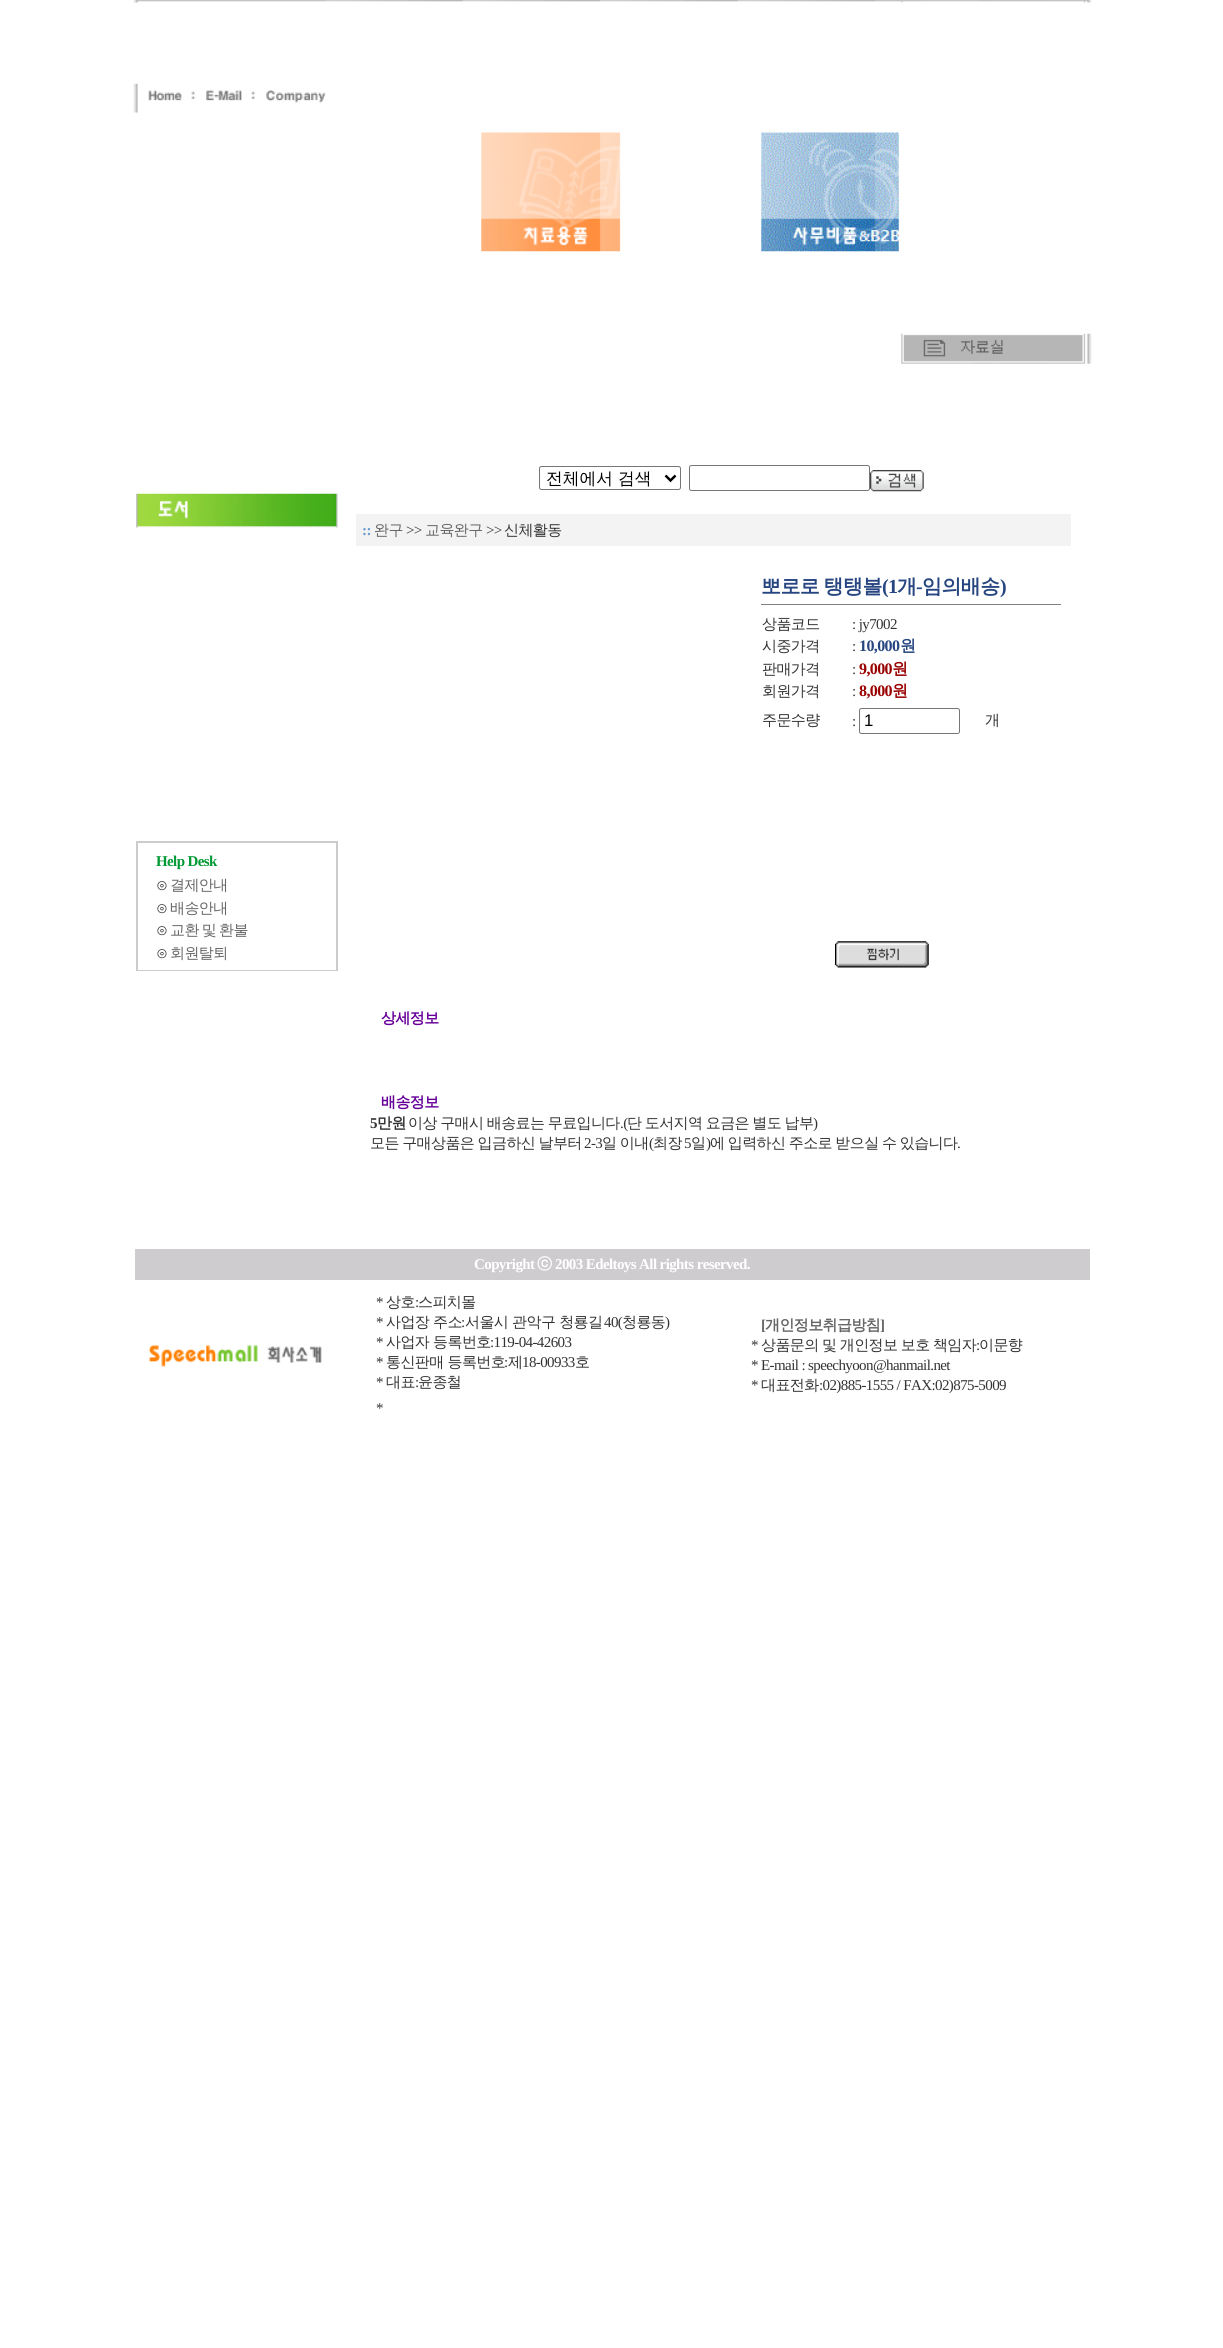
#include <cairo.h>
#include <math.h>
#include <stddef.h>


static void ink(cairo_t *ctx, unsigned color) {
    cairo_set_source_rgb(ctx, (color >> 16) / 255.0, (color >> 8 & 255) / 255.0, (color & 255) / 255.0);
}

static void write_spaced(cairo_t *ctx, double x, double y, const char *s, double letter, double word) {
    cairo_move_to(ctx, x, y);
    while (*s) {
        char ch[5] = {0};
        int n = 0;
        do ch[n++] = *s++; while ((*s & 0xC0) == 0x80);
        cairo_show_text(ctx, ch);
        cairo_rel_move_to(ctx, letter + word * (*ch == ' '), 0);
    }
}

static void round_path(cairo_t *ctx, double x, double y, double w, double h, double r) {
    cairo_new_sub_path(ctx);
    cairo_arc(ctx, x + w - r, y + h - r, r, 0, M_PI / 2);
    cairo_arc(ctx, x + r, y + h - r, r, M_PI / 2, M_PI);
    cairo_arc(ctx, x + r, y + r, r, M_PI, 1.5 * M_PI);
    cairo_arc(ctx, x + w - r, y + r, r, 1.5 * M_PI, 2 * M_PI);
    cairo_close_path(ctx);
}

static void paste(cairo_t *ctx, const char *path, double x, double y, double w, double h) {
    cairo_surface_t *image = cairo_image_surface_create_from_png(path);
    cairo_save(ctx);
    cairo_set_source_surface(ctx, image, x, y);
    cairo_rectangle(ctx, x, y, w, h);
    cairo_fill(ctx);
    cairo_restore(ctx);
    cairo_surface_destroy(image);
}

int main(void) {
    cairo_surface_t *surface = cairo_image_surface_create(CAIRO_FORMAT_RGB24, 1223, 2348);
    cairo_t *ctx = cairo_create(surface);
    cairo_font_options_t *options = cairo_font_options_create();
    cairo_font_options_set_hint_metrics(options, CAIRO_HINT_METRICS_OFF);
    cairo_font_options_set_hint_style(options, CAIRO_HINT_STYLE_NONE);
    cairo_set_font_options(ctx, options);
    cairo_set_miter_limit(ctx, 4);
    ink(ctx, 0xFFFFFF);
    cairo_paint(ctx);
    paste(ctx, "media/1.png", 133, 0, 959, 3);
    paste(ctx, "media/2.png", 133, 83, 193, 30);
    paste(ctx, "media/3.png", 481, 132, 140, 120);
    paste(ctx, "media/4.png", 761, 132, 138, 120);
    paste(ctx, "media/5.png", 901, 333, 191, 31);
    paste(ctx, "media/6.png", 136, 493, 202, 35);
    ink(ctx, 0xCCCCCC);
    cairo_rectangle(ctx, 136, 841, 202, 130);
    cairo_fill(ctx);
    ink(ctx, 0xFFFFFF);
    cairo_rectangle(ctx, 138, 843, 198, 127);
    cairo_fill(ctx);
    cairo_select_font_face(ctx, "Liberation Serif", CAIRO_FONT_SLANT_NORMAL, CAIRO_FONT_WEIGHT_BOLD);
    cairo_set_font_size(ctx, 15);
    ink(ctx, 0x009933);
    write_spaced(ctx, 156, 866, "Help Desk", -0.6, 0);
    cairo_select_font_face(ctx, "WenQuanYi Zen Hei Medium", CAIRO_FONT_SLANT_NORMAL, CAIRO_FONT_WEIGHT_NORMAL);
    ink(ctx, 0x333333);
    write_spaced(ctx, 156, 890, "⊙", -0.6, 0);
    ink(ctx, 0x666666);
    write_spaced(ctx, 170, 890, "결제안내", -0.6, 0);
    ink(ctx, 0x333333);
    write_spaced(ctx, 156, 913, "⊙", -0.6, 0);
    ink(ctx, 0x666666);
    write_spaced(ctx, 170, 913, "배송안내", -0.6, 0);
    ink(ctx, 0x333333);
    write_spaced(ctx, 156, 935, "⊙", -0.6, 0);
    ink(ctx, 0x666666);
    write_spaced(ctx, 170, 935, "교환 및 환불", -0.6, -1);
    ink(ctx, 0x333333);
    write_spaced(ctx, 156, 958, "⊙", -0.6, 0);
    ink(ctx, 0x666666);
    write_spaced(ctx, 170, 958, "회원탈퇴", -0.6, 0);
    round_path(ctx, 539.5, 466.5, 141, 23, 2);
    ink(ctx, 0x767676);
    cairo_set_line_width(ctx, 1);
    cairo_stroke(ctx);
    cairo_new_path(ctx);
    cairo_move_to(ctx, 665.5, 475.5);
    cairo_line_to(ctx, 670.5, 480.5);
    cairo_line_to(ctx, 675.5, 475.5);
    ink(ctx, 0x000000);
    cairo_set_line_width(ctx, 2.5);
    cairo_stroke(ctx);
    cairo_set_font_size(ctx, 16.75);
    cairo_move_to(ctx, 546, 484);
    cairo_show_text(ctx, "전체에서 검색");
    round_path(ctx, 689.5, 465.5, 180, 25, 2);
    ink(ctx, 0x767676);
    cairo_set_line_width(ctx, 1);
    cairo_stroke(ctx);
    paste(ctx, "media/7.png", 870, 470, 54, 22);
    ink(ctx, 0xF3F3F3);
    cairo_rectangle(ctx, 356, 514, 715, 32);
    cairo_fill(ctx);
    cairo_select_font_face(ctx, "Liberation Serif", CAIRO_FONT_SLANT_NORMAL, CAIRO_FONT_WEIGHT_BOLD);
    cairo_set_font_size(ctx, 15);
    ink(ctx, 0x6699CC);
    write_spaced(ctx, 362, 535, "::", -0.6, 0);
    cairo_select_font_face(ctx, "WenQuanYi Zen Hei Medium", CAIRO_FONT_SLANT_NORMAL, CAIRO_FONT_WEIGHT_NORMAL);
    ink(ctx, 0x666666);
    write_spaced(ctx, 374, 535, "완구", -0.6, 0);
    cairo_select_font_face(ctx, "Liberation Serif", CAIRO_FONT_SLANT_NORMAL, CAIRO_FONT_WEIGHT_NORMAL);
    ink(ctx, 0x333333);
    write_spaced(ctx, 406, 535, ">>", -0.6, 0);
    cairo_select_font_face(ctx, "WenQuanYi Zen Hei Medium", CAIRO_FONT_SLANT_NORMAL, CAIRO_FONT_WEIGHT_NORMAL);
    ink(ctx, 0x666666);
    write_spaced(ctx, 425, 535, "교육완구", -0.6, 0);
    cairo_select_font_face(ctx, "Liberation Serif", CAIRO_FONT_SLANT_NORMAL, CAIRO_FONT_WEIGHT_NORMAL);
    ink(ctx, 0x333333);
    write_spaced(ctx, 486, 535, ">>", -0.6, 0);
    cairo_select_font_face(ctx, "WenQuanYi Zen Hei Medium", CAIRO_FONT_SLANT_NORMAL, CAIRO_FONT_WEIGHT_NORMAL);
    write_spaced(ctx, 504, 535, "신체활동", -0.6, 0);
    cairo_select_font_face(ctx, "WenQuanYi Zen Hei", CAIRO_FONT_SLANT_NORMAL, CAIRO_FONT_WEIGHT_BOLD);
    cairo_set_font_size(ctx, 20);
    ink(ctx, 0x274681);
    write_spaced(ctx, 761, 593, "뽀로로 탱탱볼", -0.6, -1);
    cairo_select_font_face(ctx, "Liberation Serif", CAIRO_FONT_SLANT_NORMAL, CAIRO_FONT_WEIGHT_BOLD);
    write_spaced(ctx, 882, 593, "(1", -0.6, 0);
    cairo_select_font_face(ctx, "WenQuanYi Zen Hei", CAIRO_FONT_SLANT_NORMAL, CAIRO_FONT_WEIGHT_BOLD);
    write_spaced(ctx, 897, 593, "개", -0.6, 0);
    cairo_select_font_face(ctx, "Liberation Serif", CAIRO_FONT_SLANT_NORMAL, CAIRO_FONT_WEIGHT_BOLD);
    write_spaced(ctx, 916, 593, "-", -0.6, 0);
    cairo_select_font_face(ctx, "WenQuanYi Zen Hei", CAIRO_FONT_SLANT_NORMAL, CAIRO_FONT_WEIGHT_BOLD);
    write_spaced(ctx, 922, 593, "임의배송", -0.6, 0);
    cairo_select_font_face(ctx, "Liberation Serif", CAIRO_FONT_SLANT_NORMAL, CAIRO_FONT_WEIGHT_BOLD);
    write_spaced(ctx, 1000, 593, ")", -0.6, 0);
    ink(ctx, 0x808080);
    cairo_rectangle(ctx, 761, 604, 300, 1);
    cairo_fill(ctx);
    cairo_select_font_face(ctx, "WenQuanYi Zen Hei Medium", CAIRO_FONT_SLANT_NORMAL, CAIRO_FONT_WEIGHT_NORMAL);
    cairo_set_font_size(ctx, 15);
    ink(ctx, 0x333333);
    write_spaced(ctx, 762, 629, "상품코드", -0.6, 0);
    cairo_select_font_face(ctx, "Liberation Serif", CAIRO_FONT_SLANT_NORMAL, CAIRO_FONT_WEIGHT_NORMAL);
    write_spaced(ctx, 852, 629, ": jy7002", -0.6, 0);
    cairo_select_font_face(ctx, "WenQuanYi Zen Hei Medium", CAIRO_FONT_SLANT_NORMAL, CAIRO_FONT_WEIGHT_NORMAL);
    write_spaced(ctx, 762, 651, "시중가격", -0.6, 0);
    cairo_select_font_face(ctx, "Liberation Serif", CAIRO_FONT_SLANT_NORMAL, CAIRO_FONT_WEIGHT_NORMAL);
    write_spaced(ctx, 852, 651, ":", -0.6, 0);
    cairo_select_font_face(ctx, "Liberation Serif", CAIRO_FONT_SLANT_NORMAL, CAIRO_FONT_WEIGHT_BOLD);
    cairo_set_font_size(ctx, 16);
    ink(ctx, 0x274681);
    write_spaced(ctx, 859, 651, "10,000", -0.6, 0);
    cairo_select_font_face(ctx, "WenQuanYi Zen Hei", CAIRO_FONT_SLANT_NORMAL, CAIRO_FONT_WEIGHT_BOLD);
    write_spaced(ctx, 900, 651, "원", -0.6, 0);
    cairo_select_font_face(ctx, "WenQuanYi Zen Hei Medium", CAIRO_FONT_SLANT_NORMAL, CAIRO_FONT_WEIGHT_NORMAL);
    cairo_set_font_size(ctx, 15);
    ink(ctx, 0x333333);
    write_spaced(ctx, 762, 674, "판매가격", -0.6, 0);
    cairo_select_font_face(ctx, "Liberation Serif", CAIRO_FONT_SLANT_NORMAL, CAIRO_FONT_WEIGHT_NORMAL);
    write_spaced(ctx, 852, 674, ":", -0.6, 0);
    cairo_select_font_face(ctx, "Liberation Serif", CAIRO_FONT_SLANT_NORMAL, CAIRO_FONT_WEIGHT_BOLD);
    cairo_set_font_size(ctx, 16);
    ink(ctx, 0x990000);
    write_spaced(ctx, 859, 674, "9,000", -0.6, 0);
    cairo_select_font_face(ctx, "WenQuanYi Zen Hei", CAIRO_FONT_SLANT_NORMAL, CAIRO_FONT_WEIGHT_BOLD);
    write_spaced(ctx, 892, 674, "원", -0.6, 0);
    cairo_select_font_face(ctx, "WenQuanYi Zen Hei Medium", CAIRO_FONT_SLANT_NORMAL, CAIRO_FONT_WEIGHT_NORMAL);
    cairo_set_font_size(ctx, 15);
    ink(ctx, 0x333333);
    write_spaced(ctx, 762, 696, "회원가격", -0.6, 0);
    cairo_select_font_face(ctx, "Liberation Serif", CAIRO_FONT_SLANT_NORMAL, CAIRO_FONT_WEIGHT_NORMAL);
    write_spaced(ctx, 852, 696, ":", -0.6, 0);
    cairo_select_font_face(ctx, "Liberation Serif", CAIRO_FONT_SLANT_NORMAL, CAIRO_FONT_WEIGHT_BOLD);
    cairo_set_font_size(ctx, 16);
    ink(ctx, 0x990000);
    write_spaced(ctx, 859, 696, "8,000", -0.6, 0);
    cairo_select_font_face(ctx, "WenQuanYi Zen Hei", CAIRO_FONT_SLANT_NORMAL, CAIRO_FONT_WEIGHT_BOLD);
    write_spaced(ctx, 892, 696, "원", -0.6, 0);
    cairo_select_font_face(ctx, "WenQuanYi Zen Hei Medium", CAIRO_FONT_SLANT_NORMAL, CAIRO_FONT_WEIGHT_NORMAL);
    cairo_set_font_size(ctx, 15);
    ink(ctx, 0x333333);
    write_spaced(ctx, 762, 725, "주문수량", -0.6, 0);
    cairo_select_font_face(ctx, "Liberation Serif", CAIRO_FONT_SLANT_NORMAL, CAIRO_FONT_WEIGHT_NORMAL);
    write_spaced(ctx, 852, 726, ":", -0.6, 0);
    round_path(ctx, 859.5, 708.5, 100, 25, 2);
    ink(ctx, 0x767676);
    cairo_stroke(ctx);
    cairo_select_font_face(ctx, "Liberation Sans", CAIRO_FONT_SLANT_NORMAL, CAIRO_FONT_WEIGHT_NORMAL);
    cairo_set_font_size(ctx, 16.75);
    ink(ctx, 0x000000);
    cairo_move_to(ctx, 864, 726);
    cairo_show_text(ctx, "1");
    cairo_select_font_face(ctx, "WenQuanYi Zen Hei Medium", CAIRO_FONT_SLANT_NORMAL, CAIRO_FONT_WEIGHT_NORMAL);
    cairo_set_font_size(ctx, 15);
    ink(ctx, 0x333333);
    write_spaced(ctx, 985, 725, "개", -0.6, 0);
    paste(ctx, "media/8.png", 835, 941, 94, 27);
    cairo_select_font_face(ctx, "WenQuanYi Zen Hei", CAIRO_FONT_SLANT_NORMAL, CAIRO_FONT_WEIGHT_BOLD);
    ink(ctx, 0x660099);
    write_spaced(ctx, 381, 1023, "상세정보", -0.6, 0);
    write_spaced(ctx, 381, 1107, "배송정보", -0.6, 0);
    cairo_select_font_face(ctx, "Liberation Serif", CAIRO_FONT_SLANT_NORMAL, CAIRO_FONT_WEIGHT_BOLD);
    ink(ctx, 0x333333);
    write_spaced(ctx, 370, 1128, "5", -0.6, 0);
    cairo_select_font_face(ctx, "WenQuanYi Zen Hei", CAIRO_FONT_SLANT_NORMAL, CAIRO_FONT_WEIGHT_BOLD);
    write_spaced(ctx, 377, 1128, "만원", -0.6, 0);
    cairo_select_font_face(ctx, "WenQuanYi Zen Hei Medium", CAIRO_FONT_SLANT_NORMAL, CAIRO_FONT_WEIGHT_NORMAL);
    write_spaced(ctx, 408, 1128, "이상 구매시 배송료는 무료입니다", -0.6, -0.5);
    cairo_select_font_face(ctx, "Liberation Serif", CAIRO_FONT_SLANT_NORMAL, CAIRO_FONT_WEIGHT_NORMAL);
    write_spaced(ctx, 620, 1128, ".(", -0.6, 0);
    cairo_select_font_face(ctx, "WenQuanYi Zen Hei Medium", CAIRO_FONT_SLANT_NORMAL, CAIRO_FONT_WEIGHT_NORMAL);
    write_spaced(ctx, 627, 1128, "단 도서지역 요금은 별도 납부", -0.6, -0.5);
    cairo_select_font_face(ctx, "Liberation Serif", CAIRO_FONT_SLANT_NORMAL, CAIRO_FONT_WEIGHT_NORMAL);
    write_spaced(ctx, 813, 1128, ")", -0.6, 0);
    cairo_select_font_face(ctx, "WenQuanYi Zen Hei Medium", CAIRO_FONT_SLANT_NORMAL, CAIRO_FONT_WEIGHT_NORMAL);
    write_spaced(ctx, 370, 1148, "모든 구매상품은 입금하신 날부터", -0.6, -0.5);
    cairo_select_font_face(ctx, "Liberation Serif", CAIRO_FONT_SLANT_NORMAL, CAIRO_FONT_WEIGHT_NORMAL);
    write_spaced(ctx, 584, 1148, "2-3", -0.6, 0);
    cairo_select_font_face(ctx, "WenQuanYi Zen Hei Medium", CAIRO_FONT_SLANT_NORMAL, CAIRO_FONT_WEIGHT_NORMAL);
    write_spaced(ctx, 602, 1148, "일 이내", -0.6, -0.5);
    cairo_select_font_face(ctx, "Liberation Serif", CAIRO_FONT_SLANT_NORMAL, CAIRO_FONT_WEIGHT_NORMAL);
    write_spaced(ctx, 649, 1148, "(", -0.6, 0);
    cairo_select_font_face(ctx, "WenQuanYi Zen Hei Medium", CAIRO_FONT_SLANT_NORMAL, CAIRO_FONT_WEIGHT_NORMAL);
    write_spaced(ctx, 653, 1148, "최장", -0.6, 0);
    cairo_select_font_face(ctx, "Liberation Serif", CAIRO_FONT_SLANT_NORMAL, CAIRO_FONT_WEIGHT_NORMAL);
    write_spaced(ctx, 684, 1148, "5", -0.6, 0);
    cairo_select_font_face(ctx, "WenQuanYi Zen Hei Medium", CAIRO_FONT_SLANT_NORMAL, CAIRO_FONT_WEIGHT_NORMAL);
    write_spaced(ctx, 691, 1148, "일", -0.6, 0);
    cairo_select_font_face(ctx, "Liberation Serif", CAIRO_FONT_SLANT_NORMAL, CAIRO_FONT_WEIGHT_NORMAL);
    write_spaced(ctx, 706, 1148, ")", -0.6, 0);
    cairo_select_font_face(ctx, "WenQuanYi Zen Hei Medium", CAIRO_FONT_SLANT_NORMAL, CAIRO_FONT_WEIGHT_NORMAL);
    write_spaced(ctx, 710, 1148, "에 입력하신 주소로 받으실 수 있습니다", -0.6, -0.5);
    cairo_select_font_face(ctx, "Liberation Serif", CAIRO_FONT_SLANT_NORMAL, CAIRO_FONT_WEIGHT_NORMAL);
    write_spaced(ctx, 957, 1148, ".", -0.6, 0);
    ink(ctx, 0xCFCCCF);
    cairo_rectangle(ctx, 135, 1249, 955, 31);
    cairo_fill(ctx);
    cairo_select_font_face(ctx, "Liberation Serif", CAIRO_FONT_SLANT_NORMAL, CAIRO_FONT_WEIGHT_BOLD);
    ink(ctx, 0xFFFFFF);
    write_spaced(ctx, 474, 1269, "Copyright", -0.6, 0);
    cairo_select_font_face(ctx, "WenQuanYi Zen Hei", CAIRO_FONT_SLANT_NORMAL, CAIRO_FONT_WEIGHT_BOLD);
    write_spaced(ctx, 537, 1269, "ⓒ", -0.6, 0);
    cairo_select_font_face(ctx, "Liberation Serif", CAIRO_FONT_SLANT_NORMAL, CAIRO_FONT_WEIGHT_BOLD);
    write_spaced(ctx, 555, 1269, "2003 Edeltoys All rights reserved.", -0.6, 0);
    paste(ctx, "media/9.png", 148, 1344, 174, 23);
    cairo_select_font_face(ctx, "Liberation Serif", CAIRO_FONT_SLANT_NORMAL, CAIRO_FONT_WEIGHT_NORMAL);
    ink(ctx, 0x333333);
    write_spaced(ctx, 376, 1307, "*", -0.6, 0);
    cairo_select_font_face(ctx, "WenQuanYi Zen Hei Medium", CAIRO_FONT_SLANT_NORMAL, CAIRO_FONT_WEIGHT_NORMAL);
    write_spaced(ctx, 386, 1307, "상호", -0.6, 0);
    cairo_select_font_face(ctx, "Liberation Serif", CAIRO_FONT_SLANT_NORMAL, CAIRO_FONT_WEIGHT_NORMAL);
    write_spaced(ctx, 415, 1307, ":", -0.6, 0);
    cairo_select_font_face(ctx, "WenQuanYi Zen Hei Medium", CAIRO_FONT_SLANT_NORMAL, CAIRO_FONT_WEIGHT_NORMAL);
    write_spaced(ctx, 418, 1307, "스피치몰", -0.6, 0);
    cairo_select_font_face(ctx, "Liberation Serif", CAIRO_FONT_SLANT_NORMAL, CAIRO_FONT_WEIGHT_NORMAL);
    write_spaced(ctx, 376, 1327, "*", -0.6, 0);
    cairo_select_font_face(ctx, "WenQuanYi Zen Hei Medium", CAIRO_FONT_SLANT_NORMAL, CAIRO_FONT_WEIGHT_NORMAL);
    write_spaced(ctx, 386, 1327, "사업장 주소", -0.6, 0);
    cairo_select_font_face(ctx, "Liberation Serif", CAIRO_FONT_SLANT_NORMAL, CAIRO_FONT_WEIGHT_NORMAL);
    write_spaced(ctx, 461, 1327, ":", -0.6, 0);
    cairo_select_font_face(ctx, "WenQuanYi Zen Hei Medium", CAIRO_FONT_SLANT_NORMAL, CAIRO_FONT_WEIGHT_NORMAL);
    write_spaced(ctx, 465, 1327, "서울시 관악구 청룡길", -0.6, 0);
    cairo_select_font_face(ctx, "Liberation Serif", CAIRO_FONT_SLANT_NORMAL, CAIRO_FONT_WEIGHT_NORMAL);
    write_spaced(ctx, 604, 1327, "40(", -0.6, 0);
    cairo_select_font_face(ctx, "WenQuanYi Zen Hei Medium", CAIRO_FONT_SLANT_NORMAL, CAIRO_FONT_WEIGHT_NORMAL);
    write_spaced(ctx, 622, 1327, "청룡동", -0.6, 0);
    cairo_select_font_face(ctx, "Liberation Serif", CAIRO_FONT_SLANT_NORMAL, CAIRO_FONT_WEIGHT_NORMAL);
    write_spaced(ctx, 665, 1327, ")", -0.6, 0);
    write_spaced(ctx, 376, 1347, "*", -0.6, 0);
    cairo_select_font_face(ctx, "WenQuanYi Zen Hei Medium", CAIRO_FONT_SLANT_NORMAL, CAIRO_FONT_WEIGHT_NORMAL);
    write_spaced(ctx, 386, 1347, "사업자 등록번호", -0.6, 0);
    cairo_select_font_face(ctx, "Liberation Serif", CAIRO_FONT_SLANT_NORMAL, CAIRO_FONT_WEIGHT_NORMAL);
    write_spaced(ctx, 490, 1347, ":119-04-42603", -0.6, 0);
    write_spaced(ctx, 376, 1367, "*", -0.6, 0);
    cairo_select_font_face(ctx, "WenQuanYi Zen Hei Medium", CAIRO_FONT_SLANT_NORMAL, CAIRO_FONT_WEIGHT_NORMAL);
    write_spaced(ctx, 386, 1367, "통신판매 등록번호", -0.6, 0);
    cairo_select_font_face(ctx, "Liberation Serif", CAIRO_FONT_SLANT_NORMAL, CAIRO_FONT_WEIGHT_NORMAL);
    write_spaced(ctx, 504, 1367, ":", -0.6, 0);
    cairo_select_font_face(ctx, "WenQuanYi Zen Hei Medium", CAIRO_FONT_SLANT_NORMAL, CAIRO_FONT_WEIGHT_NORMAL);
    write_spaced(ctx, 508, 1367, "제", -0.6, 0);
    cairo_select_font_face(ctx, "Liberation Serif", CAIRO_FONT_SLANT_NORMAL, CAIRO_FONT_WEIGHT_NORMAL);
    write_spaced(ctx, 522, 1367, "18-00933", -0.6, 0);
    cairo_select_font_face(ctx, "WenQuanYi Zen Hei Medium", CAIRO_FONT_SLANT_NORMAL, CAIRO_FONT_WEIGHT_NORMAL);
    write_spaced(ctx, 575, 1367, "호", -0.6, 0);
    cairo_select_font_face(ctx, "Liberation Serif", CAIRO_FONT_SLANT_NORMAL, CAIRO_FONT_WEIGHT_NORMAL);
    write_spaced(ctx, 376, 1387, "*", -0.6, 0);
    cairo_select_font_face(ctx, "WenQuanYi Zen Hei Medium", CAIRO_FONT_SLANT_NORMAL, CAIRO_FONT_WEIGHT_NORMAL);
    write_spaced(ctx, 386, 1387, "대표", -0.6, 0);
    cairo_select_font_face(ctx, "Liberation Serif", CAIRO_FONT_SLANT_NORMAL, CAIRO_FONT_WEIGHT_NORMAL);
    write_spaced(ctx, 415, 1387, ":", -0.6, 0);
    cairo_select_font_face(ctx, "WenQuanYi Zen Hei Medium", CAIRO_FONT_SLANT_NORMAL, CAIRO_FONT_WEIGHT_NORMAL);
    write_spaced(ctx, 418, 1387, "윤종철", -0.6, 0);
    cairo_select_font_face(ctx, "Liberation Serif", CAIRO_FONT_SLANT_NORMAL, CAIRO_FONT_WEIGHT_NORMAL);
    write_spaced(ctx, 376, 1413, "*", -0.6, 0);
    cairo_select_font_face(ctx, "Liberation Serif", CAIRO_FONT_SLANT_NORMAL, CAIRO_FONT_WEIGHT_BOLD);
    ink(ctx, 0x666666);
    write_spaced(ctx, 761, 1330, "[", -0.6, 0);
    cairo_select_font_face(ctx, "WenQuanYi Zen Hei", CAIRO_FONT_SLANT_NORMAL, CAIRO_FONT_WEIGHT_BOLD);
    write_spaced(ctx, 765, 1330, "개인정보취급방침", -0.6, 0);
    cairo_select_font_face(ctx, "Liberation Serif", CAIRO_FONT_SLANT_NORMAL, CAIRO_FONT_WEIGHT_BOLD);
    write_spaced(ctx, 880, 1330, "]", -0.6, 0);
    cairo_select_font_face(ctx, "Liberation Serif", CAIRO_FONT_SLANT_NORMAL, CAIRO_FONT_WEIGHT_NORMAL);
    ink(ctx, 0x333333);
    write_spaced(ctx, 751, 1350, "*", -0.6, 0);
    cairo_select_font_face(ctx, "WenQuanYi Zen Hei Medium", CAIRO_FONT_SLANT_NORMAL, CAIRO_FONT_WEIGHT_NORMAL);
    write_spaced(ctx, 761, 1350, "상품문의 및 개인정보 보호 책임자", -0.6, -0.5);
    cairo_select_font_face(ctx, "Liberation Serif", CAIRO_FONT_SLANT_NORMAL, CAIRO_FONT_WEIGHT_NORMAL);
    write_spaced(ctx, 976, 1350, ":", -0.6, 0);
    cairo_select_font_face(ctx, "WenQuanYi Zen Hei Medium", CAIRO_FONT_SLANT_NORMAL, CAIRO_FONT_WEIGHT_NORMAL);
    write_spaced(ctx, 979, 1350, "이문향", -0.6, 0);
    cairo_select_font_face(ctx, "Liberation Serif", CAIRO_FONT_SLANT_NORMAL, CAIRO_FONT_WEIGHT_NORMAL);
    write_spaced(ctx, 751, 1370, "* E-mail : speechyoon@hanmail.net", -0.6, 0);
    write_spaced(ctx, 751, 1390, "*", -0.6, 0);
    cairo_select_font_face(ctx, "WenQuanYi Zen Hei Medium", CAIRO_FONT_SLANT_NORMAL, CAIRO_FONT_WEIGHT_NORMAL);
    write_spaced(ctx, 761, 1390, "대표전화", -0.6, 0);
    cairo_select_font_face(ctx, "Liberation Serif", CAIRO_FONT_SLANT_NORMAL, CAIRO_FONT_WEIGHT_NORMAL);
    write_spaced(ctx, 819, 1390, ":02)885-1555 / FAX:02)875-5009", -0.6, 0);
    cairo_surface_write_to_png(surface, "image.png");
    cairo_font_options_destroy(options);
    cairo_destroy(ctx);
    cairo_surface_destroy(surface);
    return 0;
}
